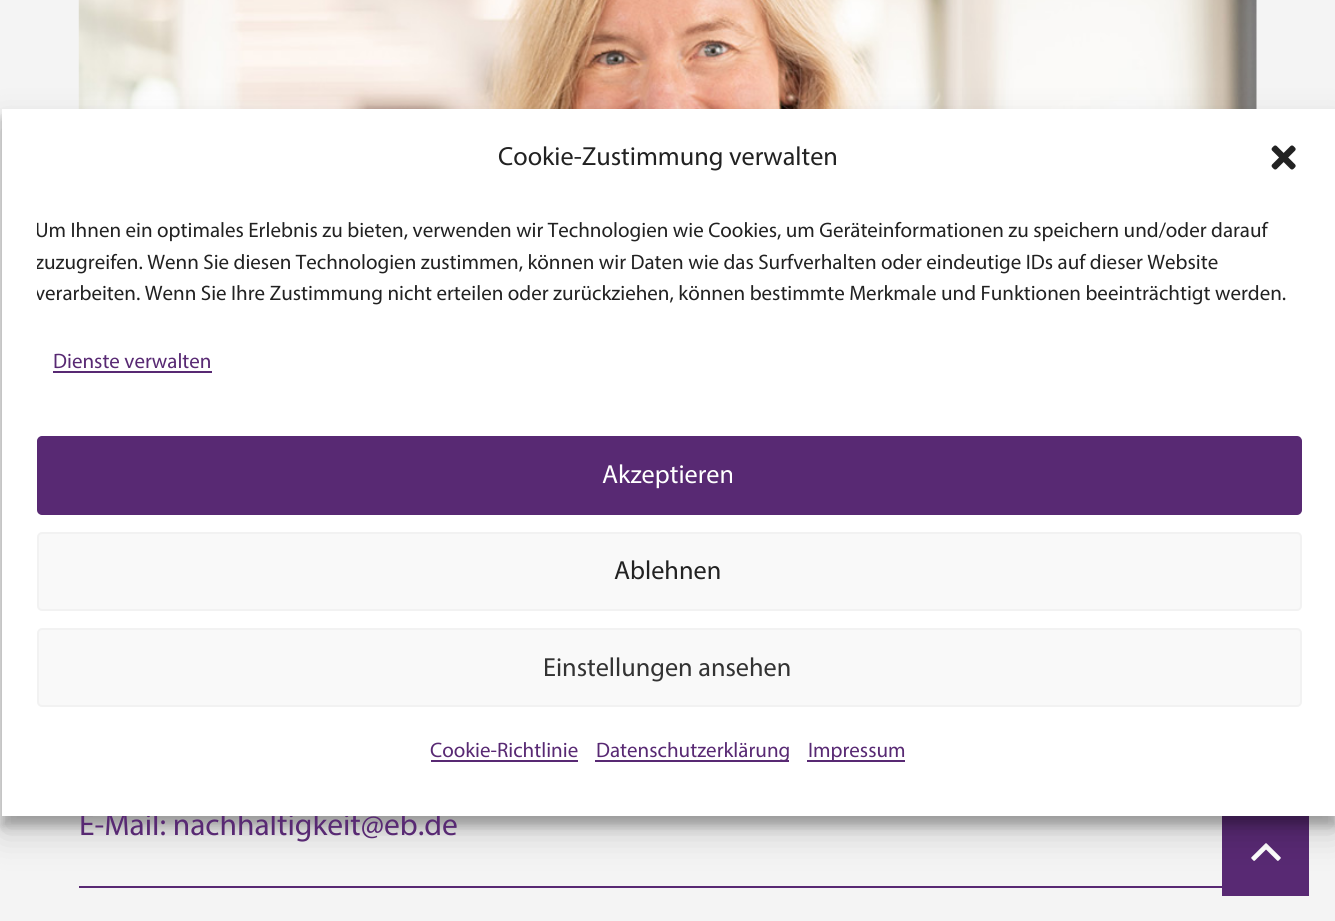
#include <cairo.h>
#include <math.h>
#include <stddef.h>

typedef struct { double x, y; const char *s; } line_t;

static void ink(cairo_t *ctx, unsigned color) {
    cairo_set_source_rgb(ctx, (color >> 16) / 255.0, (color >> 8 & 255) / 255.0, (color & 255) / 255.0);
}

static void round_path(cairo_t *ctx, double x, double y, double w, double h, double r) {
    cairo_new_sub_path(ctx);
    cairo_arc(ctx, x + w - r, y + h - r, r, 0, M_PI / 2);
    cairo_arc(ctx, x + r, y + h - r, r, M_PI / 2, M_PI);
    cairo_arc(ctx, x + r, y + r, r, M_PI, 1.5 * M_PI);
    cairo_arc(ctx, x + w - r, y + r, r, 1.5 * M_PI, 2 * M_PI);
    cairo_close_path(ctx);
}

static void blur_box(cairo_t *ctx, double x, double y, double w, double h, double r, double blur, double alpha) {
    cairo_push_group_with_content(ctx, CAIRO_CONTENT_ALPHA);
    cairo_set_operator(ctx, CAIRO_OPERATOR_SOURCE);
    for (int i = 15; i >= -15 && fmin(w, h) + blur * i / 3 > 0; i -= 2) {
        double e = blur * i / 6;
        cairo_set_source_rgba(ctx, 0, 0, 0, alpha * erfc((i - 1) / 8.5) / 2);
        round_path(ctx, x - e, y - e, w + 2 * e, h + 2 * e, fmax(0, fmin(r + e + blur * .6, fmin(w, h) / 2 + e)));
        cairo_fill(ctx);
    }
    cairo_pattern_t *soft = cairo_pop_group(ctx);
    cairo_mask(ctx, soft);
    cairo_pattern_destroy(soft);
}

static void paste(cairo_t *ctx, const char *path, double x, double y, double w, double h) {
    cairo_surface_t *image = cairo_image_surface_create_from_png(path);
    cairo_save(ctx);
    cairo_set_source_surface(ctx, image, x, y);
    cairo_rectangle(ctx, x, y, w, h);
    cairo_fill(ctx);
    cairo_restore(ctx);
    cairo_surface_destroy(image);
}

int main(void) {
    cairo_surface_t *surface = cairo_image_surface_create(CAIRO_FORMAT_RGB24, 1335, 921);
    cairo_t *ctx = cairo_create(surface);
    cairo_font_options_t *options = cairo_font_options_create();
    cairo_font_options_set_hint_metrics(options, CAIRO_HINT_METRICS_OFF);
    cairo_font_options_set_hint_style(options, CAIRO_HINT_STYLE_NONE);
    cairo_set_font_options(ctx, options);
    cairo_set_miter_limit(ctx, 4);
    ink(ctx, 0xF4F4F4);
    cairo_paint(ctx);
    paste(ctx, "media/2.png", 78, 0, 1179, 109);
    ink(ctx, 0x582973);
    cairo_rectangle(ctx, 1222, 816, 87, 80);
    cairo_fill(ctx);
    ink(ctx, 0x000000);
    blur_box(ctx, 2, 119, 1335, 707, 0, 5, 0.23);
    ink(ctx, 0x582973);
    cairo_rectangle(ctx, 79, 886, 1143, 2);
    cairo_fill(ctx);
    paste(ctx, "media/3.png", 1251, 843, 30, 18);
    ink(ctx, 0x000000);
    blur_box(ctx, 2, 126, 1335, 707, 0, 17.5, 0.19);
    cairo_select_font_face(ctx, "Myriad", CAIRO_FONT_SLANT_NORMAL, CAIRO_FONT_WEIGHT_NORMAL);
    cairo_set_font_size(ctx, 31.5);
    ink(ctx, 0x582973);
    cairo_move_to(ctx, 79, 835);
    cairo_show_text(ctx, "E-Mail: nachhaltigkeit@eb.de");
    ink(ctx, 0xFFFFFF);
    cairo_rectangle(ctx, 2, 109, 1333, 707);
    cairo_fill(ctx);
    cairo_set_font_size(ctx, 26.25);
    ink(ctx, 0x222222);
    cairo_move_to(ctx, 498, 165);
    cairo_show_text(ctx, "Cookie-Zustimmung verwalten");
    paste(ctx, "media/1.png", 1271, 145, 25, 25);
    cairo_save(ctx);
    cairo_rectangle(ctx, 37, 215, 1265, 104);
    cairo_clip(ctx);
    cairo_set_font_size(ctx, 21);
    {
        static const line_t items[] = {
            {35, 237, "Um Ihnen ein optimales Erlebnis zu bieten, verwenden wir Technologien wie Cookies, um Geräteinformationen zu speichern und/oder darauf"},
            {35, 269, "zuzugreifen. Wenn Sie diesen Technologien zustimmen, können wir Daten wie das Surfverhalten oder eindeutige IDs auf dieser Website"},
            {35, 300, "verarbeiten. Wenn Sie Ihre Zustimmung nicht erteilen oder zurückziehen, können bestimmte Merkmale und Funktionen beeinträchtigt werden."},
        };
        for (size_t i = 0; i < sizeof items / sizeof *items; i++) {
            cairo_move_to(ctx, items[i].x, items[i].y);
            cairo_show_text(ctx, items[i].s);
        }
    }
    cairo_restore(ctx);
    cairo_set_font_size(ctx, 21);
    ink(ctx, 0x582973);
    cairo_move_to(ctx, 53, 368);
    cairo_show_text(ctx, "Dienste verwalten");
    cairo_rectangle(ctx, 53, 371, 159, 2);
    cairo_fill(ctx);
    round_path(ctx, 38, 437, 1263, 77, 4);
    cairo_fill_preserve(ctx);
    cairo_stroke(ctx);
    cairo_set_font_size(ctx, 26.25);
    ink(ctx, 0xFFFFFF);
    cairo_move_to(ctx, 602, 483);
    cairo_show_text(ctx, "Akzeptieren");
    ink(ctx, 0xF9F9F9);
    round_path(ctx, 38, 533, 1263, 77, 4);
    cairo_fill_preserve(ctx);
    ink(ctx, 0xF2F2F2);
    cairo_stroke(ctx);
    ink(ctx, 0x222222);
    cairo_move_to(ctx, 614, 579);
    cairo_show_text(ctx, "Ablehnen");
    ink(ctx, 0xF9F9F9);
    round_path(ctx, 38, 629, 1263, 77, 4);
    cairo_fill_preserve(ctx);
    ink(ctx, 0xF2F2F2);
    cairo_stroke(ctx);
    ink(ctx, 0x333333);
    cairo_move_to(ctx, 543, 676);
    cairo_show_text(ctx, "Einstellungen ansehen");
    cairo_set_font_size(ctx, 21);
    ink(ctx, 0x582973);
    cairo_move_to(ctx, 430, 757);
    cairo_show_text(ctx, "Cookie-Richtlinie");
    cairo_rectangle(ctx, 431, 760, 147, 2);
    cairo_fill(ctx);
    cairo_rectangle(ctx, 595, 760, 194, 2);
    cairo_fill(ctx);
    cairo_move_to(ctx, 596, 757);
    cairo_show_text(ctx, "Datenschutzerklärung");
    cairo_rectangle(ctx, 807, 760, 98, 2);
    cairo_fill(ctx);
    cairo_move_to(ctx, 808, 757);
    cairo_show_text(ctx, "Impressum");
    cairo_surface_write_to_png(surface, "image.png");
    cairo_font_options_destroy(options);
    cairo_destroy(ctx);
    cairo_surface_destroy(surface);
    return 0;
}
